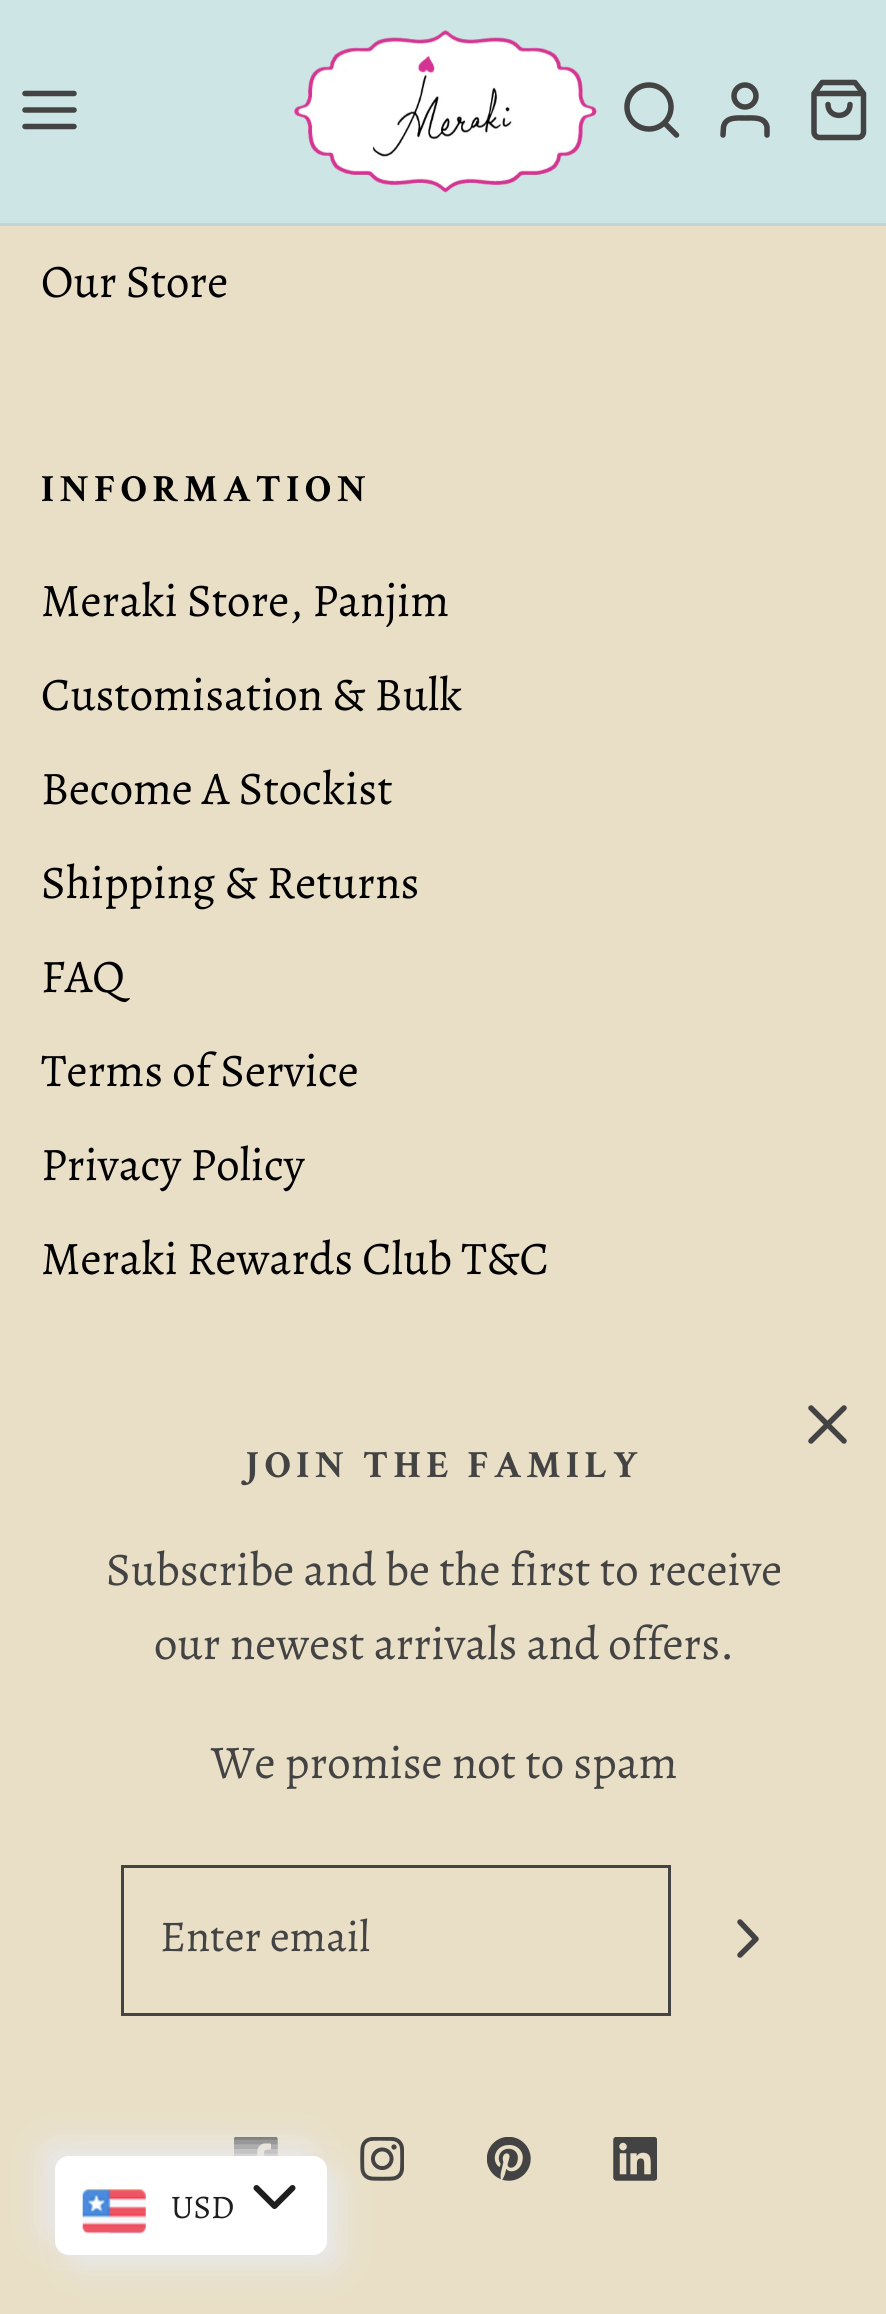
#include <cairo.h>
#include <math.h>
#include <stddef.h>

typedef struct { double x, y; const char *s; } line_t;

static void ink(cairo_t *ctx, unsigned color) {
    cairo_set_source_rgb(ctx, (color >> 16) / 255.0, (color >> 8 & 255) / 255.0, (color & 255) / 255.0);
}

static void write_spaced(cairo_t *ctx, double x, double y, const char *s, double letter, double word) {
    cairo_move_to(ctx, x, y);
    while (*s) {
        char ch[5] = {0};
        int n = 0;
        do ch[n++] = *s++; while ((*s & 0xC0) == 0x80);
        cairo_show_text(ctx, ch);
        cairo_rel_move_to(ctx, letter + word * (*ch == ' '), 0);
    }
}

static void round_path(cairo_t *ctx, double x, double y, double w, double h, double r) {
    cairo_new_sub_path(ctx);
    cairo_arc(ctx, x + w - r, y + h - r, r, 0, M_PI / 2);
    cairo_arc(ctx, x + r, y + h - r, r, M_PI / 2, M_PI);
    cairo_arc(ctx, x + r, y + r, r, M_PI, 1.5 * M_PI);
    cairo_arc(ctx, x + w - r, y + r, r, 1.5 * M_PI, 2 * M_PI);
    cairo_close_path(ctx);
}

static void blur_box(cairo_t *ctx, double x, double y, double w, double h, double r, double blur, double alpha) {
    cairo_push_group_with_content(ctx, CAIRO_CONTENT_ALPHA);
    cairo_set_operator(ctx, CAIRO_OPERATOR_SOURCE);
    for (int i = 15; i >= -15 && fmin(w, h) + blur * i / 3 > 0; i -= 2) {
        double e = blur * i / 6;
        cairo_set_source_rgba(ctx, 0, 0, 0, alpha * erfc((i - 1) / 8.5) / 2);
        round_path(ctx, x - e, y - e, w + 2 * e, h + 2 * e, fmax(0, fmin(r + e + blur * .6, fmin(w, h) / 2 + e)));
        cairo_fill(ctx);
    }
    cairo_pattern_t *soft = cairo_pop_group(ctx);
    cairo_mask(ctx, soft);
    cairo_pattern_destroy(soft);
}

static void paste(cairo_t *ctx, const char *path, double x, double y, double w, double h) {
    cairo_surface_t *image = cairo_image_surface_create_from_png(path);
    cairo_save(ctx);
    cairo_set_source_surface(ctx, image, x, y);
    cairo_rectangle(ctx, x, y, w, h);
    cairo_fill(ctx);
    cairo_restore(ctx);
    cairo_surface_destroy(image);
}

int main(void) {
    cairo_surface_t *surface = cairo_image_surface_create(CAIRO_FORMAT_RGB24, 886, 2314);
    cairo_t *ctx = cairo_create(surface);
    cairo_font_options_t *options = cairo_font_options_create();
    cairo_font_options_set_hint_metrics(options, CAIRO_HINT_METRICS_OFF);
    cairo_font_options_set_hint_style(options, CAIRO_HINT_STYLE_NONE);
    cairo_set_font_options(ctx, options);
    cairo_set_miter_limit(ctx, 4);
    ink(ctx, 0xE9DFC7);
    cairo_paint(ctx);
    ink(ctx, 0xCDE6E5);
    cairo_rectangle(ctx, 0, 0, 886, 223);
    cairo_fill(ctx);
    ink(ctx, 0xBFD6D5);
    cairo_rectangle(ctx, 0, 223, 886, 3);
    cairo_fill(ctx);
    cairo_new_path(ctx);
    cairo_move_to(ctx, 25, 110);
    cairo_line_to(ctx, 74, 110);
    cairo_move_to(ctx, 25, 93.5);
    cairo_line_to(ctx, 74, 93.5);
    cairo_move_to(ctx, 25, 126.5);
    cairo_line_to(ctx, 74, 126.5);
    ink(ctx, 0x434343);
    cairo_set_line_width(ctx, 5.5);
    cairo_set_line_cap(ctx, CAIRO_LINE_CAP_ROUND);
    cairo_set_line_join(ctx, CAIRO_LINE_JOIN_ROUND);
    cairo_stroke(ctx);
    paste(ctx, "media/1.png", 294, 30, 303, 163);
    cairo_arc(ctx, 649, 107, 22, 0, 2 * M_PI);
    cairo_set_line_cap(ctx, CAIRO_LINE_CAP_BUTT);
    cairo_set_line_join(ctx, CAIRO_LINE_JOIN_MITER);
    cairo_stroke(ctx);
    cairo_new_path(ctx);
    cairo_move_to(ctx, 676.5, 135);
    cairo_line_to(ctx, 664.5, 123);
    cairo_set_line_cap(ctx, CAIRO_LINE_CAP_ROUND);
    cairo_set_line_join(ctx, CAIRO_LINE_JOIN_ROUND);
    cairo_stroke(ctx);
    cairo_new_path(ctx);
    cairo_move_to(ctx, 767, 135);
    cairo_line_to(ctx, 767, 127);
    cairo_curve_to(ctx, 765, 116.5, 753, 118, 745, 118);
    cairo_curve_to(ctx, 737.5, 118, 725.5, 116.5, 723.5, 127);
    cairo_line_to(ctx, 723, 135);
    cairo_stroke(ctx);
    cairo_arc(ctx, 745, 96, 11, 0, 2 * M_PI);
    cairo_set_line_cap(ctx, CAIRO_LINE_CAP_BUTT);
    cairo_set_line_join(ctx, CAIRO_LINE_JOIN_MITER);
    cairo_stroke(ctx);
    cairo_new_path(ctx);
    cairo_move_to(ctx, 822, 82.5);
    cairo_line_to(ctx, 814, 93.5);
    cairo_line_to(ctx, 814, 132);
    cairo_curve_to(ctx, 814, 135, 816.5, 137.5, 819.5, 137.5);
    cairo_line_to(ctx, 858, 137.5);
    cairo_curve_to(ctx, 861, 137.5, 863.5, 135, 863.5, 132);
    cairo_line_to(ctx, 863.5, 93.5);
    cairo_line_to(ctx, 855, 82.5);
    cairo_close_path(ctx);
    cairo_move_to(ctx, 814, 93.5);
    cairo_line_to(ctx, 863.5, 93.5);
    cairo_move_to(ctx, 850, 104.5);
    cairo_curve_to(ctx, 850, 119, 828, 119, 828, 104.5);
    cairo_set_line_cap(ctx, CAIRO_LINE_CAP_ROUND);
    cairo_set_line_join(ctx, CAIRO_LINE_JOIN_ROUND);
    cairo_stroke(ctx);
    cairo_select_font_face(ctx, "Alegreya", CAIRO_FONT_SLANT_NORMAL, CAIRO_FONT_WEIGHT_NORMAL);
    cairo_set_font_size(ctx, 46.75);
    ink(ctx, 0x000000);
    cairo_move_to(ctx, 41, 297);
    cairo_show_text(ctx, "Our Store");
    cairo_select_font_face(ctx, "Crimson Text", CAIRO_FONT_SLANT_NORMAL, CAIRO_FONT_WEIGHT_BOLD);
    cairo_set_font_size(ctx, 38.5);
    write_spaced(ctx, 41, 501, "INFORMATION", 5.5, 0);
    cairo_select_font_face(ctx, "Alegreya", CAIRO_FONT_SLANT_NORMAL, CAIRO_FONT_WEIGHT_NORMAL);
    cairo_set_font_size(ctx, 46.75);
    {
        static const line_t items[] = {
            {41, 616, "Meraki Store, Panjim"},
            {41, 710, "Customisation & Bulk"},
            {41, 804, "Become A Stockist"},
            {41, 898, "Shipping & Returns"},
            {41, 992, "FAQ"},
            {41, 1086, "Terms of Service"},
            {41, 1180, "Privacy Policy"},
            {41, 1274, "Meraki Rewards Club T&C"},
        };
        for (size_t i = 0; i < sizeof items / sizeof *items; i++) {
            cairo_move_to(ctx, items[i].x, items[i].y);
            cairo_show_text(ctx, items[i].s);
        }
    }
    cairo_new_path(ctx);
    cairo_move_to(ctx, 844, 1408);
    cairo_line_to(ctx, 811, 1441);
    cairo_move_to(ctx, 811, 1408);
    cairo_line_to(ctx, 844, 1441);
    ink(ctx, 0x434343);
    cairo_stroke(ctx);
    cairo_select_font_face(ctx, "Crimson Text", CAIRO_FONT_SLANT_NORMAL, CAIRO_FONT_WEIGHT_BOLD);
    cairo_set_font_size(ctx, 38.5);
    write_spaced(ctx, 245, 1477, "JOIN THE FAMILY", 5.5, 0);
    cairo_select_font_face(ctx, "Alegreya", CAIRO_FONT_SLANT_NORMAL, CAIRO_FONT_WEIGHT_NORMAL);
    cairo_set_font_size(ctx, 46.75);
    {
        static const line_t items[] = {
            {106, 1585, "Subscribe and be the first to receive"},
            {154, 1659, "our newest arrivals and offers."},
            {211, 1778, "We promise not to spam"},
        };
        for (size_t i = 0; i < sizeof items / sizeof *items; i++) {
            cairo_move_to(ctx, items[i].x, items[i].y);
            cairo_show_text(ctx, items[i].s);
        }
    }
    cairo_rectangle(ctx, 122.5, 1866.5, 547, 148);
    cairo_set_line_width(ctx, 3);
    cairo_set_line_cap(ctx, CAIRO_LINE_CAP_BUTT);
    cairo_set_line_join(ctx, CAIRO_LINE_JOIN_MITER);
    cairo_stroke(ctx);
    cairo_set_font_size(ctx, 44);
    cairo_move_to(ctx, 160, 1951);
    cairo_show_text(ctx, "Enter email");
    cairo_new_path(ctx);
    cairo_move_to(ctx, 740, 1955);
    cairo_line_to(ctx, 756, 1939);
    cairo_line_to(ctx, 740, 1922);
    cairo_set_line_width(ctx, 5.5);
    cairo_set_line_cap(ctx, CAIRO_LINE_CAP_ROUND);
    cairo_set_line_join(ctx, CAIRO_LINE_JOIN_ROUND);
    cairo_stroke(ctx);
    paste(ctx, "media/2.png", 234, 2137, 44, 19);
    paste(ctx, "media/3.png", 360, 2137, 44, 44);
    paste(ctx, "media/4.png", 487, 2137, 44, 44);
    paste(ctx, "media/5.png", 613, 2137, 44, 44);
    ink(ctx, 0xE8E8E8);
    blur_box(ctx, 41, 2142, 273, 99, 14, 14, 1);
    blur_box(ctx, 69, 2170, 272, 99, 14, 14, 1);
    ink(ctx, 0xFFFFFF);
    round_path(ctx, 55, 2156, 272, 99, 14);
    cairo_fill(ctx);
    paste(ctx, "media/6.png", 82, 2188, 64, 46);
    cairo_set_font_size(ctx, 33);
    ink(ctx, 0x1E1E1E);
    cairo_move_to(ctx, 171, 2218);
    cairo_show_text(ctx, "USD");
    cairo_new_path(ctx);
    cairo_move_to(ctx, 256.5, 2188);
    cairo_line_to(ctx, 274.5, 2206);
    cairo_line_to(ctx, 292.5, 2188);
    cairo_set_line_width(ctx, 6);
    cairo_stroke(ctx);
    cairo_surface_write_to_png(surface, "image.png");
    cairo_font_options_destroy(options);
    cairo_destroy(ctx);
    cairo_surface_destroy(surface);
    return 0;
}
